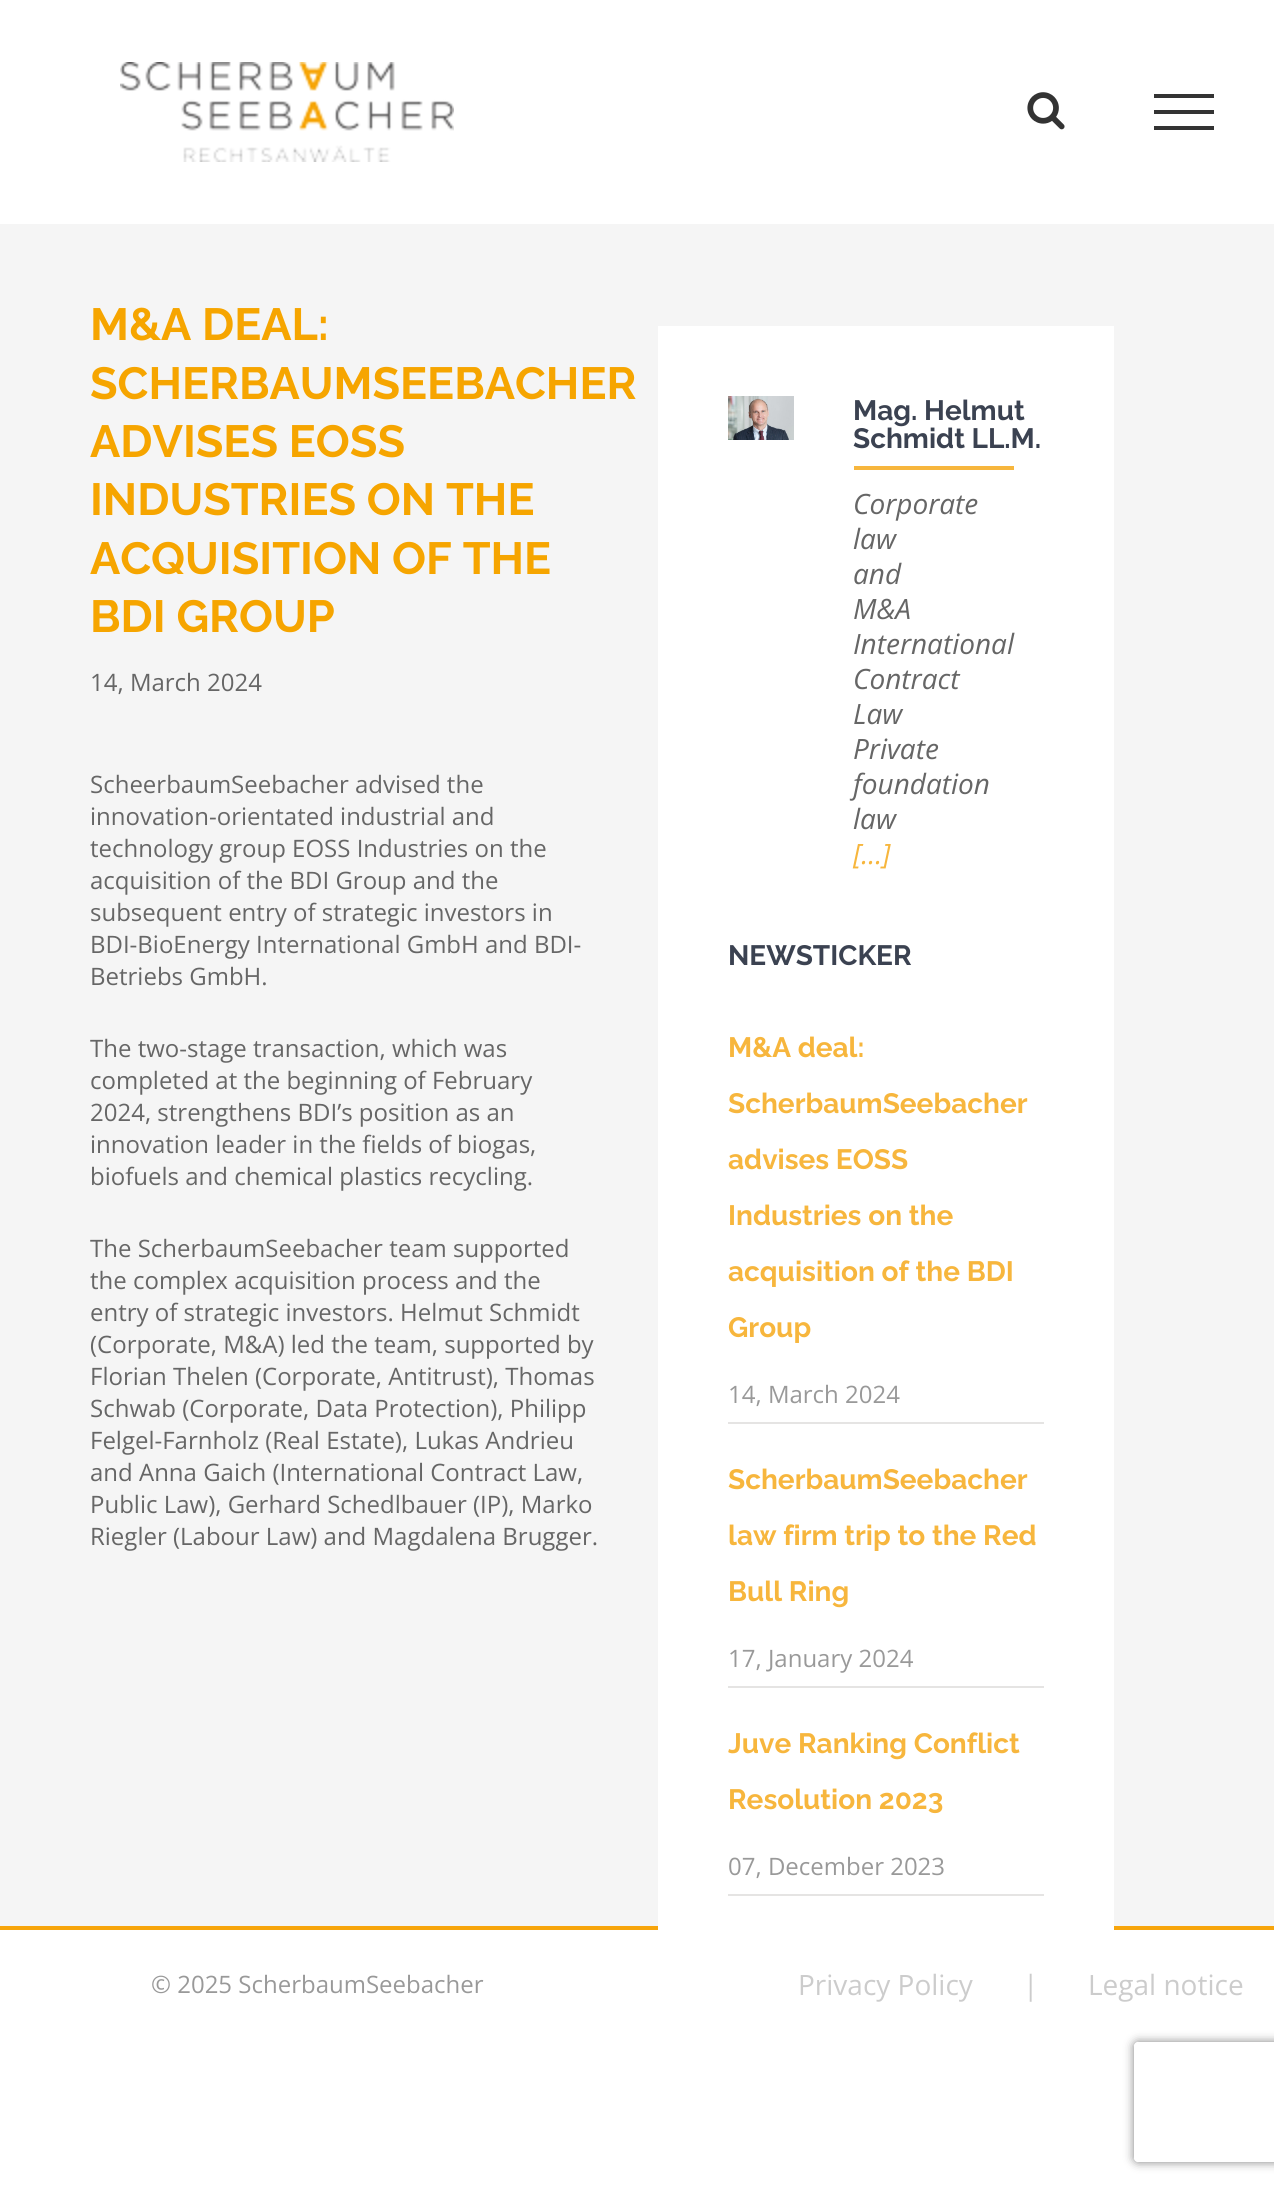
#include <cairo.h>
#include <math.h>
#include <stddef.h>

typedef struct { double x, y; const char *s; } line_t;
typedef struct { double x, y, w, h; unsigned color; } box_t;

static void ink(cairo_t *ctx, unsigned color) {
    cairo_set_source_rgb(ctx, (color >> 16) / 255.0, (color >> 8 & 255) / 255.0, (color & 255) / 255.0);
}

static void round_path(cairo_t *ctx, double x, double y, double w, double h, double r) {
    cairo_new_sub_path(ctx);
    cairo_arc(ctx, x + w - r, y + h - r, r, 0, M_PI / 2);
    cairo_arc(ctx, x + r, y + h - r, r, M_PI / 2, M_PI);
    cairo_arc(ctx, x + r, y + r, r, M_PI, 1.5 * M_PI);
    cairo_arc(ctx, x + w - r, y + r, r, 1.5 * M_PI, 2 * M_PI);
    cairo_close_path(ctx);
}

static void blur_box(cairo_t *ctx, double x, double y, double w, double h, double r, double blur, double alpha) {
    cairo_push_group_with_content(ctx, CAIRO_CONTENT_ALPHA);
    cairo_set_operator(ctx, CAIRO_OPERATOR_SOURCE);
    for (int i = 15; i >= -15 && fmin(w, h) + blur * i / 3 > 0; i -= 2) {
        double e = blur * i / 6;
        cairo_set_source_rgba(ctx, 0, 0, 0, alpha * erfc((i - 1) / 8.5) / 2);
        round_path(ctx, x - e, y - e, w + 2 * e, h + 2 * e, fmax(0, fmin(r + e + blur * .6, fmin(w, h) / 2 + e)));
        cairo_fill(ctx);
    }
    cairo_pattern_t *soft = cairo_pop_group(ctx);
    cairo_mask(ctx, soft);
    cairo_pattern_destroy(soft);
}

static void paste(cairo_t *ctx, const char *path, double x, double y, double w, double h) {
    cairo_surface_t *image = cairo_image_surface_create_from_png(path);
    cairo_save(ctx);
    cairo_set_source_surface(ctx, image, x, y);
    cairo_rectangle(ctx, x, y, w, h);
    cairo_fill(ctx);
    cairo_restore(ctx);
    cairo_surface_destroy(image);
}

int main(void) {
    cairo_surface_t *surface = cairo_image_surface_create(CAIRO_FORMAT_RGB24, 1274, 2190);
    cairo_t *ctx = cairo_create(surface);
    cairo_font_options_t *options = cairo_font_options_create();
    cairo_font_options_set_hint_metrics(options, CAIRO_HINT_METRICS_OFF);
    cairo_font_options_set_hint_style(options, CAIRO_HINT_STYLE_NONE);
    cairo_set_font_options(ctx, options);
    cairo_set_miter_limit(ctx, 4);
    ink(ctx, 0xFFFFFF);
    cairo_paint(ctx);
    ink(ctx, 0xF5F5F5);
    cairo_rectangle(ctx, 0, 224, 1274, 1702);
    cairo_fill(ctx);
    paste(ctx, "media/1.png", 120, 62, 334, 100);
    paste(ctx, "media/2.png", 1027, 92, 38, 38);
    {
        static const box_t items[] = {
            {1154, 94, 60, 4, 0x333333},
            {1154, 110, 60, 4, 0x333333},
            {1154, 126, 60, 4, 0x333333},
        };
        for (size_t i = 0; i < sizeof items / sizeof *items; i++) {
            ink(ctx, items[i].color);
            cairo_rectangle(ctx, items[i].x, items[i].y, items[i].w, items[i].h);
            cairo_fill(ctx);
        }
    }
    cairo_select_font_face(ctx, "Raleway Thin", CAIRO_FONT_SLANT_NORMAL, CAIRO_FONT_WEIGHT_NORMAL);
    cairo_set_font_size(ctx, 45);
    ink(ctx, 0xF6A500);
    {
        static const line_t items[] = {
            {90, 340, "M&A DEAL:"},
            {90, 399, "SCHERBAUMSEEBACHER"},
            {90, 457, "ADVISES EOSS"},
            {90, 515, "INDUSTRIES ON THE"},
            {90, 574, "ACQUISITION OF THE"},
            {90, 632, "BDI GROUP"},
        };
        for (size_t i = 0; i < sizeof items / sizeof *items; i++) {
            cairo_move_to(ctx, items[i].x, items[i].y);
            cairo_show_text(ctx, items[i].s);
        }
    }
    cairo_select_font_face(ctx, "Open Sans", CAIRO_FONT_SLANT_NORMAL, CAIRO_FONT_WEIGHT_NORMAL);
    cairo_set_font_size(ctx, 24);
    ink(ctx, 0x666666);
    {
        static const line_t items[] = {
            {90, 691, "14, March 2024"},
            {90, 793, "ScheerbaumSeebacher advised the"},
            {90, 825, "innovation-orientated industrial and"},
            {90, 857, "technology group EOSS Industries on the"},
            {90, 889, "acquisition of the BDI Group and the"},
            {90, 921, "subsequent entry of strategic investors in"},
            {90, 953, "BDI-BioEnergy International GmbH and BDI-"},
            {90, 985, "Betriebs GmbH."},
            {90, 1057, "The two-stage transaction, which was"},
            {90, 1089, "completed at the beginning of February"},
            {90, 1121, "2024, strengthens BDI’s position as an"},
            {90, 1153, "innovation leader in the fields of biogas,"},
            {90, 1185, "biofuels and chemical plastics recycling."},
            {90, 1257, "The ScherbaumSeebacher team supported"},
            {90, 1289, "the complex acquisition process and the"},
            {90, 1321, "entry of strategic investors. Helmut Schmidt"},
            {90, 1353, "(Corporate, M&A) led the team, supported by"},
            {90, 1385, "Florian Thelen (Corporate, Antitrust), Thomas"},
            {90, 1417, "Schwab (Corporate, Data Protection), Philipp"},
            {90, 1449, "Felgel-Farnholz (Real Estate), Lukas Andrieu"},
            {90, 1481, "and Anna Gaich (International Contract Law,"},
            {90, 1513, "Public Law), Gerhard Schedlbauer (IP), Marko"},
            {90, 1545, "Riegler (Labour Law) and Magdalena Brugger."},
        };
        for (size_t i = 0; i < sizeof items / sizeof *items; i++) {
            cairo_move_to(ctx, items[i].x, items[i].y);
            cairo_show_text(ctx, items[i].s);
        }
    }
    ink(ctx, 0xF7A50C);
    cairo_rectangle(ctx, 0, 1926, 1274, 4);
    cairo_fill(ctx);
    ink(ctx, 0xFFFFFF);
    cairo_rectangle(ctx, 658, 326, 456, 1604);
    cairo_fill(ctx);
    paste(ctx, "media/3.png", 728, 396, 66, 44);
    cairo_select_font_face(ctx, "Raleway Thin", CAIRO_FONT_SLANT_NORMAL, CAIRO_FONT_WEIGHT_NORMAL);
    cairo_set_font_size(ctx, 28);
    ink(ctx, 0x3B4251);
    cairo_move_to(ctx, 853, 420);
    cairo_show_text(ctx, "Mag. Helmut");
    cairo_move_to(ctx, 853, 448);
    cairo_show_text(ctx, "Schmidt LL.M.");
    ink(ctx, 0xF7B63D);
    cairo_rectangle(ctx, 854, 466, 160, 4);
    cairo_fill(ctx);
    cairo_select_font_face(ctx, "Open Sans", CAIRO_FONT_SLANT_ITALIC, CAIRO_FONT_WEIGHT_NORMAL);
    ink(ctx, 0x666666);
    {
        static const line_t items[] = {
            {853, 514, "Corporate"},
            {853, 549, "law"},
            {853, 584, "and"},
            {853, 619, "M&A"},
            {853, 654, "International"},
            {853, 689, "Contract"},
            {853, 724, "Law"},
            {853, 759, "Private"},
            {853, 794, "foundation"},
            {853, 829, "law"},
        };
        for (size_t i = 0; i < sizeof items / sizeof *items; i++) {
            cairo_move_to(ctx, items[i].x, items[i].y);
            cairo_show_text(ctx, items[i].s);
        }
    }
    ink(ctx, 0xF7B63D);
    cairo_move_to(ctx, 853, 864);
    cairo_show_text(ctx, "[...]");
    cairo_select_font_face(ctx, "Raleway Thin", CAIRO_FONT_SLANT_NORMAL, CAIRO_FONT_WEIGHT_NORMAL);
    ink(ctx, 0x3B4251);
    cairo_move_to(ctx, 728, 965);
    cairo_show_text(ctx, "NEWSTICKER");
    ink(ctx, 0xE5E4E3);
    cairo_rectangle(ctx, 728, 1422, 316, 2);
    cairo_fill(ctx);
    ink(ctx, 0xF7B63D);
    {
        static const line_t items[] = {
            {728, 1057, "M&A deal:"},
            {728, 1113, "ScherbaumSeebacher"},
            {728, 1169, "advises EOSS"},
            {728, 1225, "Industries on the"},
            {728, 1281, "acquisition of the BDI"},
            {728, 1337, "Group"},
        };
        for (size_t i = 0; i < sizeof items / sizeof *items; i++) {
            cairo_move_to(ctx, items[i].x, items[i].y);
            cairo_show_text(ctx, items[i].s);
        }
    }
    cairo_select_font_face(ctx, "Open Sans", CAIRO_FONT_SLANT_NORMAL, CAIRO_FONT_WEIGHT_NORMAL);
    cairo_set_font_size(ctx, 24);
    ink(ctx, 0x999999);
    cairo_move_to(ctx, 728, 1403);
    cairo_show_text(ctx, "14, March 2024");
    ink(ctx, 0xE5E4E3);
    cairo_rectangle(ctx, 728, 1686, 316, 2);
    cairo_fill(ctx);
    cairo_select_font_face(ctx, "Raleway Thin", CAIRO_FONT_SLANT_NORMAL, CAIRO_FONT_WEIGHT_NORMAL);
    cairo_set_font_size(ctx, 28);
    ink(ctx, 0xF7B63D);
    {
        static const line_t items[] = {
            {728, 1489, "ScherbaumSeebacher"},
            {728, 1545, "law firm trip to the Red"},
            {728, 1601, "Bull Ring"},
        };
        for (size_t i = 0; i < sizeof items / sizeof *items; i++) {
            cairo_move_to(ctx, items[i].x, items[i].y);
            cairo_show_text(ctx, items[i].s);
        }
    }
    cairo_select_font_face(ctx, "Open Sans", CAIRO_FONT_SLANT_NORMAL, CAIRO_FONT_WEIGHT_NORMAL);
    cairo_set_font_size(ctx, 24);
    ink(ctx, 0x999999);
    cairo_move_to(ctx, 728, 1667);
    cairo_show_text(ctx, "17, January 2024");
    ink(ctx, 0xE5E4E3);
    cairo_rectangle(ctx, 728, 1894, 316, 2);
    cairo_fill(ctx);
    cairo_select_font_face(ctx, "Raleway Thin", CAIRO_FONT_SLANT_NORMAL, CAIRO_FONT_WEIGHT_NORMAL);
    cairo_set_font_size(ctx, 28);
    ink(ctx, 0xF7B63D);
    cairo_move_to(ctx, 728, 1753);
    cairo_show_text(ctx, "Juve Ranking Conflict");
    cairo_move_to(ctx, 728, 1809);
    cairo_show_text(ctx, "Resolution 2023");
    cairo_select_font_face(ctx, "Open Sans", CAIRO_FONT_SLANT_NORMAL, CAIRO_FONT_WEIGHT_NORMAL);
    cairo_set_font_size(ctx, 24);
    ink(ctx, 0x999999);
    cairo_move_to(ctx, 728, 1875);
    cairo_show_text(ctx, "07, December 2023");
    cairo_move_to(ctx, 151, 1993);
    cairo_show_text(ctx, "© 2025 ScherbaumSeebacher");
    cairo_set_font_size(ctx, 28);
    ink(ctx, 0xCCCCCC);
    {
        static const line_t items[] = {
            {798, 1995, "Privacy Policy"},
            {1023, 1995, "|"},
            {1088, 1995, "Legal notice"},
        };
        for (size_t i = 0; i < sizeof items / sizeof *items; i++) {
            cairo_move_to(ctx, items[i].x, items[i].y);
            cairo_show_text(ctx, items[i].s);
        }
    }
    cairo_save(ctx);
    cairo_set_fill_rule(ctx, CAIRO_FILL_RULE_EVEN_ODD);
    cairo_new_path(ctx);
    cairo_move_to(ctx, 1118, 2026);
    cairo_line_to(ctx, 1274, 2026);
    cairo_line_to(ctx, 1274, 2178);
    cairo_line_to(ctx, 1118, 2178);
    cairo_close_path(ctx);
    cairo_move_to(ctx, 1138, 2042);
    cairo_line_to(ctx, 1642, 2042);
    cairo_curve_to(ctx, 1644, 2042, 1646, 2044, 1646, 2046);
    cairo_line_to(ctx, 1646, 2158);
    cairo_curve_to(ctx, 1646, 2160, 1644, 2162, 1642, 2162);
    cairo_line_to(ctx, 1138, 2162);
    cairo_curve_to(ctx, 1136, 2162, 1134, 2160, 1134, 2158);
    cairo_line_to(ctx, 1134, 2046);
    cairo_curve_to(ctx, 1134, 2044, 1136, 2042, 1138, 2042);
    cairo_close_path(ctx);
    cairo_clip(ctx);
    ink(ctx, 0x808080);
    blur_box(ctx, 1134, 2042, 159, 120, 4, 5, 1);
    cairo_restore(ctx);
    cairo_surface_write_to_png(surface, "image.png");
    cairo_font_options_destroy(options);
    cairo_destroy(ctx);
    cairo_surface_destroy(surface);
    return 0;
}
